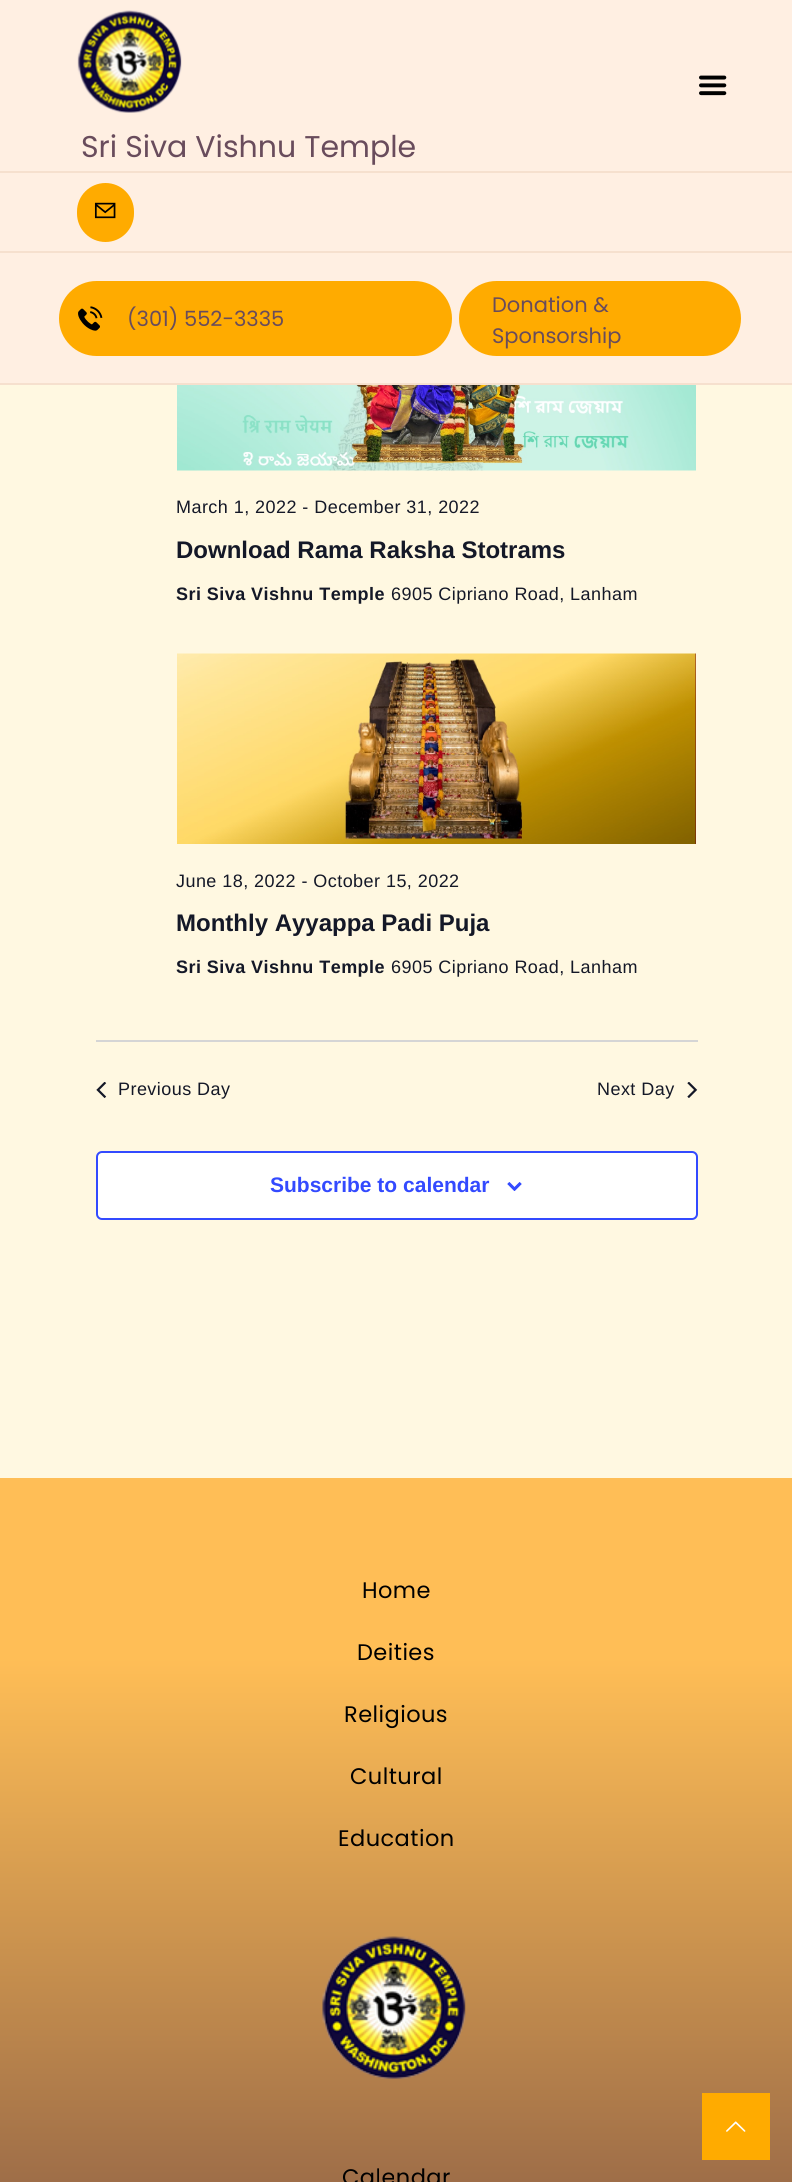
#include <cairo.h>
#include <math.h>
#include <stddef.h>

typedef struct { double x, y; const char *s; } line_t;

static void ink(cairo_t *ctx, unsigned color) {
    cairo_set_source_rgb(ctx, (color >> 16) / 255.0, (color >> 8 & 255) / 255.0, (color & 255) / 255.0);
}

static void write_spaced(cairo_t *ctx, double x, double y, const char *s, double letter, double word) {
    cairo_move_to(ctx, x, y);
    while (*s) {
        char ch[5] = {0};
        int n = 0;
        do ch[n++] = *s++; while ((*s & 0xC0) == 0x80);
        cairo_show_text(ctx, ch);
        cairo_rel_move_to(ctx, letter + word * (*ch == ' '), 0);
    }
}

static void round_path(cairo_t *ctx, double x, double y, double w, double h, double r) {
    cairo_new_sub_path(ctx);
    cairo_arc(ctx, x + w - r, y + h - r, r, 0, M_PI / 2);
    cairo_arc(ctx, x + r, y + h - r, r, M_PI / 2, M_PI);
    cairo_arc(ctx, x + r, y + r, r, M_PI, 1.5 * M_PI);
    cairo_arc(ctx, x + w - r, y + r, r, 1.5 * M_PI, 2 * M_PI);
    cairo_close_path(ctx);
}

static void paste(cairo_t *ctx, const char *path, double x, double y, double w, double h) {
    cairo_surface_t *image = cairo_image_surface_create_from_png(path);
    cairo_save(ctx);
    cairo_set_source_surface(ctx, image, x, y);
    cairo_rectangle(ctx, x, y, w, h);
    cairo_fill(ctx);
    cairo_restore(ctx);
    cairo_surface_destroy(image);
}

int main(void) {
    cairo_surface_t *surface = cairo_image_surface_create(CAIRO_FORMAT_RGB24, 792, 2182);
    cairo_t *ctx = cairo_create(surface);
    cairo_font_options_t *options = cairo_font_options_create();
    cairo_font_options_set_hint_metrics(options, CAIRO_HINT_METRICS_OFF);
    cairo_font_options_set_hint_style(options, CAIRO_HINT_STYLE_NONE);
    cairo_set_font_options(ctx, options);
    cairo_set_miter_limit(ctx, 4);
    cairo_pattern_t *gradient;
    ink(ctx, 0xFFF8E1);
    cairo_paint(ctx);
    ink(ctx, 0xFFEFE2);
    cairo_rectangle(ctx, 0, 0, 792, 171);
    cairo_fill(ctx);
    ink(ctx, 0xF6E0CE);
    cairo_rectangle(ctx, 0, 171, 792, 2);
    cairo_fill(ctx);
    paste(ctx, "media/1.png", 699, 75, 28, 21);
    paste(ctx, "media/2.png", 77, 10, 105, 103);
    cairo_select_font_face(ctx, "Poppins", CAIRO_FONT_SLANT_NORMAL, CAIRO_FONT_WEIGHT_NORMAL);
    cairo_set_font_size(ctx, 30);
    ink(ctx, 0x694C5C);
    cairo_move_to(ctx, 81, 157);
    cairo_show_text(ctx, "Sri Siva Vishnu Temple");
    ink(ctx, 0xFFEFE2);
    cairo_rectangle(ctx, 0, 173, 792, 78);
    cairo_fill(ctx);
    ink(ctx, 0xF6E0CE);
    cairo_rectangle(ctx, 0, 251, 792, 2);
    cairo_fill(ctx);
    ink(ctx, 0xFFAB00);
    round_path(ctx, 77, 183, 57, 59, 28.5);
    cairo_fill(ctx);
    paste(ctx, "media/3.png", 94, 202, 22, 17);
    ink(ctx, 0xFFEFE2);
    cairo_rectangle(ctx, 0, 253, 792, 130);
    cairo_fill(ctx);
    ink(ctx, 0xF6E0CE);
    cairo_rectangle(ctx, 0, 383, 792, 2);
    cairo_fill(ctx);
    ink(ctx, 0xFFAB00);
    round_path(ctx, 59, 281, 393, 75, 37.5);
    cairo_fill(ctx);
    paste(ctx, "media/4.png", 78, 306, 25, 25);
    cairo_set_font_size(ctx, 21);
    ink(ctx, 0x694C5C);
    cairo_move_to(ctx, 127, 326);
    cairo_show_text(ctx, "(301) 552-3335");
    ink(ctx, 0xFFAB00);
    round_path(ctx, 459, 281, 282, 75, 37.5);
    cairo_fill(ctx);
    ink(ctx, 0x694C5C);
    cairo_move_to(ctx, 492, 312);
    cairo_show_text(ctx, "Donation &");
    cairo_move_to(ctx, 492, 343);
    cairo_show_text(ctx, "Sponsorship");
    paste(ctx, "media/5.png", 177, 385, 519, 86);
    cairo_select_font_face(ctx, "Liberation Sans", CAIRO_FONT_SLANT_NORMAL, CAIRO_FONT_WEIGHT_NORMAL);
    cairo_set_font_size(ctx, 18);
    ink(ctx, 0x141827);
    write_spaced(ctx, 176, 513, "March 1, 2022 - December 31, 2022", 0.45, 0);
    cairo_select_font_face(ctx, "Liberation Sans", CAIRO_FONT_SLANT_NORMAL, CAIRO_FONT_WEIGHT_BOLD);
    cairo_set_font_size(ctx, 24);
    cairo_move_to(ctx, 176, 558);
    cairo_show_text(ctx, "Download Rama Raksha Stotrams");
    cairo_set_font_size(ctx, 18);
    write_spaced(ctx, 176, 600, "Sri Siva Vishnu Temple", 0.45, 0);
    cairo_select_font_face(ctx, "Liberation Sans", CAIRO_FONT_SLANT_NORMAL, CAIRO_FONT_WEIGHT_NORMAL);
    write_spaced(ctx, 391, 600, "6905 Cipriano Road, Lanham", 0.45, 0);
    paste(ctx, "media/6.png", 177, 653, 519, 191);
    write_spaced(ctx, 176, 887, "June 18, 2022 - October 15, 2022", 0.45, 0);
    cairo_select_font_face(ctx, "Liberation Sans", CAIRO_FONT_SLANT_NORMAL, CAIRO_FONT_WEIGHT_BOLD);
    cairo_set_font_size(ctx, 24);
    cairo_move_to(ctx, 176, 931);
    cairo_show_text(ctx, "Monthly Ayyappa Padi Puja");
    cairo_set_font_size(ctx, 18);
    write_spaced(ctx, 176, 973, "Sri Siva Vishnu Temple", 0.45, 0);
    cairo_select_font_face(ctx, "Liberation Sans", CAIRO_FONT_SLANT_NORMAL, CAIRO_FONT_WEIGHT_NORMAL);
    write_spaced(ctx, 391, 973, "6905 Cipriano Road, Lanham", 0.45, 0);
    ink(ctx, 0xD5D5D5);
    cairo_rectangle(ctx, 96, 1040, 602, 2);
    cairo_fill(ctx);
    paste(ctx, "media/7.png", 96, 1082, 11, 16);
    ink(ctx, 0x141827);
    write_spaced(ctx, 118, 1095, "Previous Day", 0.45, 0);
    write_spaced(ctx, 597, 1095, "Next Day", 0.45, 0);
    paste(ctx, "media/8.png", 687, 1082, 11, 16);
    ink(ctx, 0xFFFFFF);
    round_path(ctx, 97, 1152, 600, 67, 5);
    cairo_fill_preserve(ctx);
    ink(ctx, 0x334AFF);
    cairo_stroke(ctx);
    cairo_select_font_face(ctx, "Liberation Sans", CAIRO_FONT_SLANT_NORMAL, CAIRO_FONT_WEIGHT_BOLD);
    cairo_set_font_size(ctx, 21);
    cairo_move_to(ctx, 270, 1192);
    cairo_show_text(ctx, "Subscribe to calendar");
    paste(ctx, "media/9.png", 507, 1182, 15, 9);
    gradient = cairo_pattern_create_linear(396, 1478, 396, 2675);
    cairo_pattern_add_color_stop_rgba(gradient, 0.15, 1, 0.745, 0.337, 1);
    cairo_pattern_add_color_stop_rgba(gradient, 1, 0.267, 0.137, 0.231, 1);
    cairo_set_source(ctx, gradient);
    cairo_pattern_destroy(gradient);
    cairo_rectangle(ctx, 0, 1478, 792, 704);
    cairo_fill(ctx);
    cairo_select_font_face(ctx, "Poppins", CAIRO_FONT_SLANT_NORMAL, CAIRO_FONT_WEIGHT_NORMAL);
    cairo_set_font_size(ctx, 22.5);
    ink(ctx, 0x000000);
    {
        static const line_t items[] = {
            {362, 1598, "Home"},
            {357, 1660, "Deities"},
            {344, 1722, "Religious"},
            {350, 1784, "Cultural"},
            {338, 1846, "Education"},
        };
        for (size_t i = 0; i < sizeof items / sizeof *items; i++) {
            write_spaced(ctx, items[i].x, items[i].y, items[i].s, 0.45, 0);
        }
    }
    paste(ctx, "media/10.png", 322, 1936, 144, 143);
    write_spaced(ctx, 342, 2185, "Calendar", 0.45, 0);
    ink(ctx, 0xFFAB00);
    cairo_rectangle(ctx, 702, 2093, 68, 67);
    cairo_fill(ctx);
    paste(ctx, "media/11.png", 726, 2121, 20, 11);
    cairo_surface_write_to_png(surface, "image.png");
    cairo_font_options_destroy(options);
    cairo_destroy(ctx);
    cairo_surface_destroy(surface);
    return 0;
}
